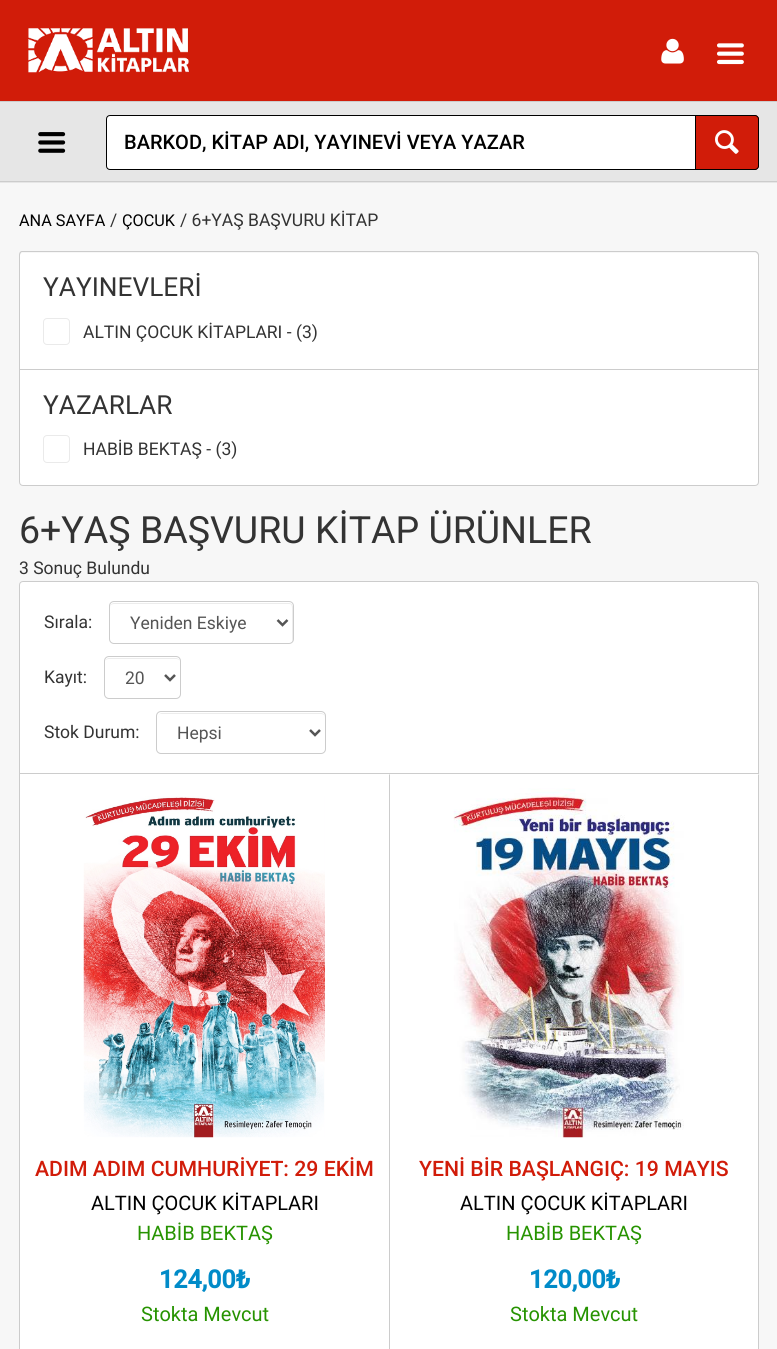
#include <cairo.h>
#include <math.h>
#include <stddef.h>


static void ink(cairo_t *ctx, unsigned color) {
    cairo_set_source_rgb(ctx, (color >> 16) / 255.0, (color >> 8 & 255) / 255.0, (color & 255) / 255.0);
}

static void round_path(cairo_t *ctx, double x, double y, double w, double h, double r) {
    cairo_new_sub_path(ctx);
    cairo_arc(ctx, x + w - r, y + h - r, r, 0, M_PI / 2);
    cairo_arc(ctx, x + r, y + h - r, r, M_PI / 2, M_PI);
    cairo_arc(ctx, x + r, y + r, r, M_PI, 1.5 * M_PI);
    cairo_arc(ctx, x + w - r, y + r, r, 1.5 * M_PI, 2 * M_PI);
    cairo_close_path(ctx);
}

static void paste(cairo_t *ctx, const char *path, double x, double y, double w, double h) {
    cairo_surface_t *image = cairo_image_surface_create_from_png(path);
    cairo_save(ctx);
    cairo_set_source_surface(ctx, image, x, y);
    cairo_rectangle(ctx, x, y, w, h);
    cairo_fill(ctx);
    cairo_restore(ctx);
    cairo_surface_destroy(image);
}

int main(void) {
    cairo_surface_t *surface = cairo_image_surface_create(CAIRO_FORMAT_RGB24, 777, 1349);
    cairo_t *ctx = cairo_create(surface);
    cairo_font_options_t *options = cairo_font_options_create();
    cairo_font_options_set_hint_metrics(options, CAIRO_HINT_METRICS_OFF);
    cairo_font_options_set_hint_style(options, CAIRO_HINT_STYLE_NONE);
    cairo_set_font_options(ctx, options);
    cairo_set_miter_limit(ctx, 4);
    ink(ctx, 0xD11C09);
    cairo_paint(ctx);
    paste(ctx, "media/1.png", 28, 28, 162, 45);
    paste(ctx, "media/2.png", 661, 38, 23, 26);
    paste(ctx, "media/3.png", 717, 43, 27, 22);
    ink(ctx, 0xE6E6E6);
    cairo_rectangle(ctx, 0, 102, 777, 81);
    cairo_fill(ctx);
    ink(ctx, 0xCCCCCC);
    cairo_rectangle(ctx, 0, 101, 777, 1);
    cairo_fill(ctx);
    paste(ctx, "media/4.png", 38, 132, 28, 21);
    ink(ctx, 0xFFFFFF);
    cairo_new_path(ctx);
    cairo_move_to(ctx, 110, 115.5);
    cairo_line_to(ctx, 695.5, 115.5);
    cairo_line_to(ctx, 695.5, 169.5);
    cairo_line_to(ctx, 110, 169.5);
    cairo_curve_to(ctx, 108, 169.5, 106.5, 168, 106.5, 166);
    cairo_line_to(ctx, 106.5, 119);
    cairo_curve_to(ctx, 106.5, 117, 108, 115.5, 110, 115.5);
    cairo_close_path(ctx);
    cairo_fill_preserve(ctx);
    ink(ctx, 0x000000);
    cairo_set_line_width(ctx, 1);
    cairo_stroke(ctx);
    cairo_select_font_face(ctx, "Roboto Medium", CAIRO_FONT_SLANT_NORMAL, CAIRO_FONT_WEIGHT_NORMAL);
    cairo_set_font_size(ctx, 20);
    cairo_move_to(ctx, 124, 149);
    cairo_show_text(ctx, "BARKOD, KİTAP ADI, YAYINEVİ VEYA YAZAR");
    ink(ctx, 0xD11C09);
    cairo_new_path(ctx);
    cairo_move_to(ctx, 696, 115);
    cairo_line_to(ctx, 755, 115);
    cairo_curve_to(ctx, 757, 115, 759, 117, 759, 119);
    cairo_line_to(ctx, 759, 166);
    cairo_curve_to(ctx, 759, 168, 757, 170, 755, 170);
    cairo_line_to(ctx, 696, 170);
    cairo_close_path(ctx);
    cairo_fill(ctx);
    ink(ctx, 0x000000);
    cairo_set_fill_rule(ctx, CAIRO_FILL_RULE_EVEN_ODD);
    cairo_new_path(ctx);
    cairo_move_to(ctx, 696, 115);
    cairo_line_to(ctx, 755, 115);
    cairo_curve_to(ctx, 757, 115, 759, 117, 759, 119);
    cairo_line_to(ctx, 759, 166);
    cairo_curve_to(ctx, 759, 168, 757, 170, 755, 170);
    cairo_line_to(ctx, 696, 170);
    cairo_close_path(ctx);
    cairo_move_to(ctx, 696, 116);
    cairo_line_to(ctx, 755, 116);
    cairo_curve_to(ctx, 756, 116, 758, 117, 758, 119);
    cairo_line_to(ctx, 758, 166);
    cairo_curve_to(ctx, 758, 168, 756, 169, 755, 169);
    cairo_line_to(ctx, 696, 169);
    cairo_close_path(ctx);
    cairo_fill(ctx);
    paste(ctx, "media/5.png", 715, 130, 24, 24);
    ink(ctx, 0xCCCCCC);
    cairo_rectangle(ctx, 0, 181, 777, 1);
    cairo_fill(ctx);
    ink(ctx, 0xF7F7F7);
    cairo_rectangle(ctx, 0, 183, 777, 1166);
    cairo_fill(ctx);
    cairo_select_font_face(ctx, "Roboto", CAIRO_FONT_SLANT_NORMAL, CAIRO_FONT_WEIGHT_NORMAL);
    cairo_set_font_size(ctx, 16.25);
    ink(ctx, 0x000000);
    cairo_move_to(ctx, 19, 226);
    cairo_show_text(ctx, "ANA SAYFA");
    cairo_set_font_size(ctx, 17.5);
    ink(ctx, 0x333333);
    cairo_move_to(ctx, 110, 226);
    cairo_show_text(ctx, "/");
    cairo_set_font_size(ctx, 16.25);
    ink(ctx, 0x000000);
    cairo_move_to(ctx, 122, 226);
    cairo_show_text(ctx, "ÇOCUK");
    cairo_set_font_size(ctx, 17.5);
    ink(ctx, 0x333333);
    cairo_move_to(ctx, 180, 226);
    cairo_show_text(ctx, "/ 6+YAŞ BAŞVURU KİTAP");
    ink(ctx, 0xFFFFFF);
    cairo_new_path(ctx);
    cairo_move_to(ctx, 22.5, 253);
    cairo_line_to(ctx, 755.5, 253);
    cairo_curve_to(ctx, 757, 253, 758, 254, 758, 255.5);
    cairo_line_to(ctx, 758, 369);
    cairo_line_to(ctx, 20, 369);
    cairo_line_to(ctx, 20, 255.5);
    cairo_curve_to(ctx, 20, 254, 21, 253, 22.5, 253);
    cairo_close_path(ctx);
    cairo_fill(ctx);
    ink(ctx, 0xCCCCCC);
    cairo_new_path(ctx);
    cairo_move_to(ctx, 22, 251);
    cairo_line_to(ctx, 755, 251);
    cairo_curve_to(ctx, 757, 251, 759, 253, 759, 255);
    cairo_line_to(ctx, 759, 369);
    cairo_line_to(ctx, 19, 369);
    cairo_line_to(ctx, 19, 255);
    cairo_curve_to(ctx, 19, 253, 20, 251, 22, 251);
    cairo_close_path(ctx);
    cairo_move_to(ctx, 22, 252);
    cairo_line_to(ctx, 755, 252);
    cairo_curve_to(ctx, 756, 252, 758, 254, 758, 255);
    cairo_line_to(ctx, 758, 369);
    cairo_line_to(ctx, 20, 369);
    cairo_line_to(ctx, 20, 255);
    cairo_curve_to(ctx, 20, 254, 21, 252, 22, 252);
    cairo_close_path(ctx);
    cairo_fill(ctx);
    cairo_set_font_size(ctx, 26.25);
    ink(ctx, 0x333333);
    cairo_move_to(ctx, 43, 296);
    cairo_show_text(ctx, "YAYINEVLERİ");
    round_path(ctx, 43.5, 318.5, 26, 26, 3.5);
    ink(ctx, 0xEAEAEA);
    cairo_stroke(ctx);
    cairo_set_font_size(ctx, 17.5);
    ink(ctx, 0x333333);
    cairo_move_to(ctx, 83, 338);
    cairo_show_text(ctx, "ALTIN ÇOCUK KİTAPLARI - (3)");
    ink(ctx, 0xFFFFFF);
    cairo_new_path(ctx);
    cairo_move_to(ctx, 19.5, 369.5);
    cairo_line_to(ctx, 758.5, 369.5);
    cairo_line_to(ctx, 758.5, 482);
    cairo_curve_to(ctx, 758.5, 484, 757, 485.5, 755, 485.5);
    cairo_line_to(ctx, 23, 485.5);
    cairo_curve_to(ctx, 21, 485.5, 19.5, 484, 19.5, 482);
    cairo_close_path(ctx);
    cairo_fill_preserve(ctx);
    ink(ctx, 0xCCCCCC);
    cairo_stroke(ctx);
    cairo_set_font_size(ctx, 26.25);
    ink(ctx, 0x333333);
    cairo_move_to(ctx, 43, 414);
    cairo_show_text(ctx, "YAZARLAR");
    round_path(ctx, 43.5, 435.5, 26, 27, 3.5);
    ink(ctx, 0xEAEAEA);
    cairo_stroke(ctx);
    cairo_set_font_size(ctx, 17.5);
    ink(ctx, 0x333333);
    cairo_move_to(ctx, 83, 455);
    cairo_show_text(ctx, "HABİB BEKTAŞ - (3)");
    cairo_set_font_size(ctx, 37.5);
    cairo_move_to(ctx, 19, 543);
    cairo_show_text(ctx, "6+YAŞ BAŞVURU KİTAP ÜRÜNLER");
    cairo_set_font_size(ctx, 17.5);
    cairo_move_to(ctx, 19, 574);
    cairo_show_text(ctx, "3 Sonuç Bulundu");
    ink(ctx, 0xFFFFFF);
    cairo_new_path(ctx);
    cairo_move_to(ctx, 23, 581.5);
    cairo_line_to(ctx, 755, 581.5);
    cairo_curve_to(ctx, 757, 581.5, 758.5, 583, 758.5, 585);
    cairo_line_to(ctx, 758.5, 773.5);
    cairo_line_to(ctx, 19.5, 773.5);
    cairo_line_to(ctx, 19.5, 585);
    cairo_curve_to(ctx, 19.5, 583, 21, 581.5, 23, 581.5);
    cairo_close_path(ctx);
    cairo_fill_preserve(ctx);
    ink(ctx, 0xCCCCCC);
    cairo_stroke(ctx);
    ink(ctx, 0x333333);
    cairo_move_to(ctx, 44, 628);
    cairo_show_text(ctx, "Sırala:");
    ink(ctx, 0xECECEC);
    cairo_set_fill_rule(ctx, CAIRO_FILL_RULE_WINDING);
    cairo_new_path(ctx);
    cairo_move_to(ctx, 114, 604);
    cairo_line_to(ctx, 289, 604);
    cairo_curve_to(ctx, 291, 604, 292, 605, 292, 608);
    cairo_line_to(ctx, 292, 642);
    cairo_curve_to(ctx, 292, 641, 293, 640, 293, 639);
    cairo_line_to(ctx, 293, 607);
    cairo_curve_to(ctx, 293, 605, 291, 603, 289, 603);
    cairo_line_to(ctx, 114, 603);
    cairo_curve_to(ctx, 112, 603, 110, 605, 110, 607);
    cairo_line_to(ctx, 110, 608);
    cairo_curve_to(ctx, 110, 605, 112, 604, 114, 604);
    cairo_close_path(ctx);
    cairo_fill(ctx);
    round_path(ctx, 109.5, 601.5, 184, 42, 4.5);
    ink(ctx, 0xCCCCCC);
    cairo_stroke(ctx);
    cairo_new_path(ctx);
    cairo_move_to(ctx, 277.5, 620);
    cairo_line_to(ctx, 282.5, 625);
    cairo_line_to(ctx, 287.5, 620);
    ink(ctx, 0x555555);
    cairo_set_line_width(ctx, 2.5);
    cairo_stroke(ctx);
    cairo_move_to(ctx, 130, 629);
    cairo_show_text(ctx, "Yeniden Eskiye");
    ink(ctx, 0x333333);
    cairo_move_to(ctx, 44, 683);
    cairo_show_text(ctx, "Kayıt:");
    ink(ctx, 0xECECEC);
    cairo_new_path(ctx);
    cairo_move_to(ctx, 109, 659);
    cairo_line_to(ctx, 176, 659);
    cairo_curve_to(ctx, 178, 659, 180, 660, 180, 662);
    cairo_curve_to(ctx, 180, 660, 178, 658, 176, 658);
    cairo_line_to(ctx, 109, 658);
    cairo_curve_to(ctx, 107, 658, 105, 660, 105, 662);
    cairo_curve_to(ctx, 105, 660, 107, 659, 109, 659);
    cairo_close_path(ctx);
    cairo_fill(ctx);
    round_path(ctx, 104.5, 656.5, 76, 42, 4.5);
    ink(ctx, 0xCCCCCC);
    cairo_set_line_width(ctx, 1);
    cairo_stroke(ctx);
    cairo_new_path(ctx);
    cairo_move_to(ctx, 165, 675);
    cairo_line_to(ctx, 170, 680);
    cairo_line_to(ctx, 175, 675);
    ink(ctx, 0x555555);
    cairo_set_line_width(ctx, 2.5);
    cairo_stroke(ctx);
    cairo_move_to(ctx, 125, 684);
    cairo_show_text(ctx, "20");
    ink(ctx, 0x333333);
    cairo_move_to(ctx, 44, 738);
    cairo_show_text(ctx, "Stok Durum:");
    ink(ctx, 0xECECEC);
    cairo_new_path(ctx);
    cairo_move_to(ctx, 161, 714);
    cairo_line_to(ctx, 321, 714);
    cairo_curve_to(ctx, 323, 714, 325, 715, 325, 718);
    cairo_line_to(ctx, 325, 717);
    cairo_curve_to(ctx, 325, 715, 323, 713, 321, 713);
    cairo_line_to(ctx, 162, 713);
    cairo_curve_to(ctx, 160, 713, 158, 715, 158, 717);
    cairo_line_to(ctx, 158, 718);
    cairo_curve_to(ctx, 158, 715, 159, 714, 161, 714);
    cairo_close_path(ctx);
    cairo_fill(ctx);
    round_path(ctx, 156.5, 711.5, 169, 42, 4.5);
    ink(ctx, 0xCCCCCC);
    cairo_set_line_width(ctx, 1);
    cairo_stroke(ctx);
    cairo_new_path(ctx);
    cairo_move_to(ctx, 310, 730);
    cairo_line_to(ctx, 315, 735);
    cairo_line_to(ctx, 320, 730);
    ink(ctx, 0x555555);
    cairo_set_line_width(ctx, 2.5);
    cairo_stroke(ctx);
    cairo_move_to(ctx, 177, 739);
    cairo_show_text(ctx, "Hepsi");
    ink(ctx, 0xFFFFFF);
    cairo_rectangle(ctx, 20, 774, 739, 575);
    cairo_fill(ctx);
    ink(ctx, 0xCCCCCC);
    cairo_rectangle(ctx, 19, 774, 1, 575);
    cairo_fill(ctx);
    cairo_new_path(ctx);
    cairo_move_to(ctx, 390, 774);
    cairo_line_to(ctx, 390, 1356);
    cairo_line_to(ctx, 389, 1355);
    cairo_line_to(ctx, 389, 775);
    cairo_close_path(ctx);
    cairo_fill(ctx);
    paste(ctx, "media/6.png", 83, 796, 242, 342);
    cairo_select_font_face(ctx, "Roboto Medium", CAIRO_FONT_SLANT_NORMAL, CAIRO_FONT_WEIGHT_NORMAL);
    cairo_set_font_size(ctx, 21.25);
    ink(ctx, 0xD11C09);
    cairo_move_to(ctx, 35, 1176);
    cairo_show_text(ctx, "ADIM ADIM CUMHURİYET: 29 EKİM");
    cairo_select_font_face(ctx, "Roboto", CAIRO_FONT_SLANT_NORMAL, CAIRO_FONT_WEIGHT_NORMAL);
    cairo_set_font_size(ctx, 20);
    ink(ctx, 0x000000);
    cairo_move_to(ctx, 91, 1210);
    cairo_show_text(ctx, "ALTIN ÇOCUK KİTAPLARI");
    ink(ctx, 0x269300);
    cairo_move_to(ctx, 137, 1240);
    cairo_show_text(ctx, "HABİB BEKTAŞ");
    cairo_select_font_face(ctx, "Roboto", CAIRO_FONT_SLANT_NORMAL, CAIRO_FONT_WEIGHT_BOLD);
    cairo_set_font_size(ctx, 25);
    ink(ctx, 0x018BC8);
    cairo_move_to(ctx, 159, 1288);
    cairo_show_text(ctx, "124,00₺");
    cairo_select_font_face(ctx, "Roboto", CAIRO_FONT_SLANT_NORMAL, CAIRO_FONT_WEIGHT_NORMAL);
    cairo_set_font_size(ctx, 20);
    ink(ctx, 0x269300);
    cairo_move_to(ctx, 141, 1321);
    cairo_show_text(ctx, "Stokta Mevcut");
    ink(ctx, 0xCCCCCC);
    cairo_new_path(ctx);
    cairo_move_to(ctx, 759, 774);
    cairo_line_to(ctx, 759, 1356);
    cairo_line_to(ctx, 758, 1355);
    cairo_line_to(ctx, 758, 775);
    cairo_close_path(ctx);
    cairo_fill(ctx);
    paste(ctx, "media/7.png", 453, 788, 231, 350);
    cairo_select_font_face(ctx, "Roboto Medium", CAIRO_FONT_SLANT_NORMAL, CAIRO_FONT_WEIGHT_NORMAL);
    cairo_set_font_size(ctx, 21.25);
    ink(ctx, 0xD11C09);
    cairo_move_to(ctx, 419, 1176);
    cairo_show_text(ctx, "YENİ BİR BAŞLANGIÇ: 19 MAYIS");
    cairo_select_font_face(ctx, "Roboto", CAIRO_FONT_SLANT_NORMAL, CAIRO_FONT_WEIGHT_NORMAL);
    cairo_set_font_size(ctx, 20);
    ink(ctx, 0x000000);
    cairo_move_to(ctx, 460, 1210);
    cairo_show_text(ctx, "ALTIN ÇOCUK KİTAPLARI");
    ink(ctx, 0x269300);
    cairo_move_to(ctx, 506, 1240);
    cairo_show_text(ctx, "HABİB BEKTAŞ");
    cairo_select_font_face(ctx, "Roboto", CAIRO_FONT_SLANT_NORMAL, CAIRO_FONT_WEIGHT_BOLD);
    cairo_set_font_size(ctx, 25);
    ink(ctx, 0x018BC8);
    cairo_move_to(ctx, 529, 1288);
    cairo_show_text(ctx, "120,00₺");
    cairo_select_font_face(ctx, "Roboto", CAIRO_FONT_SLANT_NORMAL, CAIRO_FONT_WEIGHT_NORMAL);
    cairo_set_font_size(ctx, 20);
    ink(ctx, 0x269300);
    cairo_move_to(ctx, 510, 1321);
    cairo_show_text(ctx, "Stokta Mevcut");
    cairo_surface_write_to_png(surface, "image.png");
    cairo_font_options_destroy(options);
    cairo_destroy(ctx);
    cairo_surface_destroy(surface);
    return 0;
}
